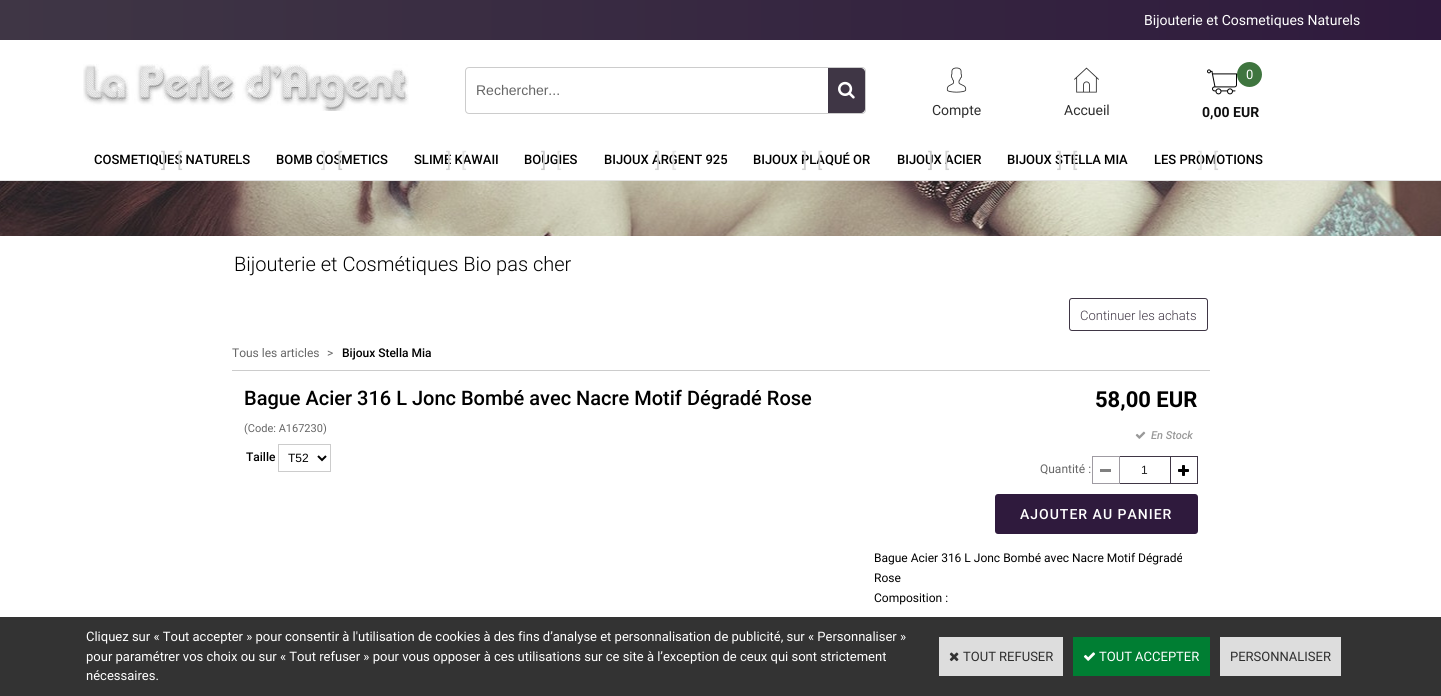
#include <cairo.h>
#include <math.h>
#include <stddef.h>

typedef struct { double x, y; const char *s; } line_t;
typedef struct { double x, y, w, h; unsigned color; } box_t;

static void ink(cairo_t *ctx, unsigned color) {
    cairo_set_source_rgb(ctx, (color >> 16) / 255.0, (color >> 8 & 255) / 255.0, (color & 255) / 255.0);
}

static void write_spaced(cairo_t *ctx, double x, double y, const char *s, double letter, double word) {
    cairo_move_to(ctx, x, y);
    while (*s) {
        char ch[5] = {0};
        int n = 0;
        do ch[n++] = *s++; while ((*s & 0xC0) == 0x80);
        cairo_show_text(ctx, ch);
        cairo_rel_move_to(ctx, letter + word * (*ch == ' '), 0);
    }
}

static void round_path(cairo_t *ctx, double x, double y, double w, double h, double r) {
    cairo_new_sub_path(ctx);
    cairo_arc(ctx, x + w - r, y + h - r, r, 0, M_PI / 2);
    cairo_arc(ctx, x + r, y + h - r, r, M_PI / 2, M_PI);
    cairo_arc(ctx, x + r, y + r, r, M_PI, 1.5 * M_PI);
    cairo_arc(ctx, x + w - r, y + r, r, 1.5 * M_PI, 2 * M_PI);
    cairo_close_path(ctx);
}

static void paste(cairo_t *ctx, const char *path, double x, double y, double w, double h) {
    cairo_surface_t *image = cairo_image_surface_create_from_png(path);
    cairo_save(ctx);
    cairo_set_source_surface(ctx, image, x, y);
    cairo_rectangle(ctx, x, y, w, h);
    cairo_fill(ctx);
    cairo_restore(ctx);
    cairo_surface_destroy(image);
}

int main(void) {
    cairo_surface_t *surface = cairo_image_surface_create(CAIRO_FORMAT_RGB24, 1441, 696);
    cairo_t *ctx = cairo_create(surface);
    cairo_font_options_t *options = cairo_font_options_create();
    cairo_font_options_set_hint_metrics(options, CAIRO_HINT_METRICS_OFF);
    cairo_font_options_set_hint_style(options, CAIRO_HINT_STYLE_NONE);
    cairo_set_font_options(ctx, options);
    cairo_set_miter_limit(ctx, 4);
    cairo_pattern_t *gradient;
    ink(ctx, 0xFFFFFF);
    cairo_paint(ctx);
    paste(ctx, "media/1.png", 0, 181, 1441, 55);
    gradient = cairo_pattern_create_linear(1441, 20, 0, 20);
    cairo_pattern_add_color_stop_rgba(gradient, 0, 0.184, 0.102, 0.239, 1);
    cairo_pattern_add_color_stop_rgba(gradient, 1, 0.247, 0.212, 0.271, 1);
    cairo_set_source(ctx, gradient);
    cairo_pattern_destroy(gradient);
    cairo_rectangle(ctx, 0, 0, 1441, 40);
    cairo_fill(ctx);
    ink(ctx, 0xE2E2E2);
    cairo_rectangle(ctx, 0, 180, 1441, 1);
    cairo_fill(ctx);
    cairo_select_font_face(ctx, "Roboto", CAIRO_FONT_SLANT_NORMAL, CAIRO_FONT_WEIGHT_NORMAL);
    cairo_set_font_size(ctx, 14);
    ink(ctx, 0xFFFFFF);
    cairo_move_to(ctx, 1144, 25);
    cairo_show_text(ctx, "Bijouterie et Cosmetiques Naturels");
    paste(ctx, "media/2.png", 83, 64, 326, 47);
    round_path(ctx, 465.5, 67.5, 400, 46, 3.5);
    ink(ctx, 0xCCCCCC);
    cairo_set_line_width(ctx, 1);
    cairo_stroke(ctx);
    cairo_select_font_face(ctx, "Liberation Sans", CAIRO_FONT_SLANT_NORMAL, CAIRO_FONT_WEIGHT_NORMAL);
    ink(ctx, 0x666666);
    cairo_move_to(ctx, 476, 95);
    cairo_show_text(ctx, "Rechercher...");
    ink(ctx, 0x3F3645);
    cairo_new_path(ctx);
    cairo_move_to(ctx, 828, 68);
    cairo_line_to(ctx, 861, 68);
    cairo_curve_to(ctx, 863, 68, 865, 70, 865, 72);
    cairo_line_to(ctx, 865, 109);
    cairo_curve_to(ctx, 865, 111, 863, 113, 861, 113);
    cairo_line_to(ctx, 828, 113);
    cairo_close_path(ctx);
    cairo_fill(ctx);
    paste(ctx, "media/3.png", 838, 81, 17, 18);
    paste(ctx, "media/4.png", 946, 67, 21, 26);
    cairo_select_font_face(ctx, "Roboto", CAIRO_FONT_SLANT_NORMAL, CAIRO_FONT_WEIGHT_NORMAL);
    ink(ctx, 0x2E2E2E);
    cairo_move_to(ctx, 932, 115);
    cairo_show_text(ctx, "Compte");
    paste(ctx, "media/5.png", 1074, 67, 25, 26);
    cairo_move_to(ctx, 1064, 115);
    cairo_show_text(ctx, "Accueil");
    paste(ctx, "media/6.png", 1207, 69, 30, 26);
    ink(ctx, 0x3F753F);
    cairo_arc(ctx, 1249.5, 74.5, 12.5, 0, 2 * M_PI);
    cairo_fill(ctx);
    cairo_set_font_size(ctx, 13);
    ink(ctx, 0xFFFFFF);
    cairo_move_to(ctx, 1246, 79);
    cairo_show_text(ctx, "0");
    cairo_select_font_face(ctx, "Roboto", CAIRO_FONT_SLANT_NORMAL, CAIRO_FONT_WEIGHT_BOLD);
    cairo_set_font_size(ctx, 14);
    ink(ctx, 0x0F0F0F);
    cairo_move_to(ctx, 1202, 117);
    cairo_show_text(ctx, "0,00 EUR");
    cairo_select_font_face(ctx, "Roboto Medium", CAIRO_FONT_SLANT_NORMAL, CAIRO_FONT_WEIGHT_NORMAL);
    cairo_set_font_size(ctx, 13);
    ink(ctx, 0x000000);
    cairo_move_to(ctx, 94, 164);
    cairo_show_text(ctx, "COSMETIQUES NATURELS");
    cairo_select_font_face(ctx, "Roboto", CAIRO_FONT_SLANT_NORMAL, CAIRO_FONT_WEIGHT_NORMAL);
    cairo_set_font_size(ctx, 20);
    ink(ctx, 0xCBCBCB);
    cairo_move_to(ctx, 161, 167);
    cairo_show_text(ctx, "]");
    ink(ctx, 0xD2D2D2);
    cairo_move_to(ctx, 177, 167);
    cairo_show_text(ctx, "[");
    cairo_select_font_face(ctx, "Roboto Medium", CAIRO_FONT_SLANT_NORMAL, CAIRO_FONT_WEIGHT_NORMAL);
    cairo_set_font_size(ctx, 13);
    ink(ctx, 0x000000);
    cairo_move_to(ctx, 276, 164);
    cairo_show_text(ctx, "BOMB COSMETICS");
    cairo_select_font_face(ctx, "Roboto", CAIRO_FONT_SLANT_NORMAL, CAIRO_FONT_WEIGHT_NORMAL);
    cairo_set_font_size(ctx, 20);
    ink(ctx, 0xE4E4E4);
    cairo_move_to(ctx, 321, 167);
    cairo_show_text(ctx, "]");
    ink(ctx, 0xCBCBCB);
    cairo_move_to(ctx, 337, 167);
    cairo_show_text(ctx, "[");
    cairo_select_font_face(ctx, "Roboto Medium", CAIRO_FONT_SLANT_NORMAL, CAIRO_FONT_WEIGHT_NORMAL);
    cairo_set_font_size(ctx, 13);
    ink(ctx, 0x000000);
    cairo_move_to(ctx, 414, 164);
    cairo_show_text(ctx, "SLIME KAWAII");
    cairo_select_font_face(ctx, "Roboto", CAIRO_FONT_SLANT_NORMAL, CAIRO_FONT_WEIGHT_NORMAL);
    cairo_set_font_size(ctx, 20);
    ink(ctx, 0xD8D8D8);
    cairo_move_to(ctx, 446, 167);
    cairo_show_text(ctx, "]");
    ink(ctx, 0xE4E4E4);
    cairo_move_to(ctx, 461, 167);
    cairo_show_text(ctx, "[");
    cairo_select_font_face(ctx, "Roboto Medium", CAIRO_FONT_SLANT_NORMAL, CAIRO_FONT_WEIGHT_NORMAL);
    cairo_set_font_size(ctx, 13);
    ink(ctx, 0x000000);
    cairo_move_to(ctx, 524, 164);
    cairo_show_text(ctx, "BOUGIES");
    cairo_select_font_face(ctx, "Roboto", CAIRO_FONT_SLANT_NORMAL, CAIRO_FONT_WEIGHT_NORMAL);
    cairo_set_font_size(ctx, 20);
    ink(ctx, 0xCBCBCB);
    cairo_move_to(ctx, 541, 167);
    cairo_show_text(ctx, "]");
    ink(ctx, 0xE4E4E4);
    cairo_move_to(ctx, 556, 167);
    cairo_show_text(ctx, "[");
    cairo_select_font_face(ctx, "Roboto Medium", CAIRO_FONT_SLANT_NORMAL, CAIRO_FONT_WEIGHT_NORMAL);
    cairo_set_font_size(ctx, 13);
    ink(ctx, 0x000000);
    cairo_move_to(ctx, 604, 164);
    cairo_show_text(ctx, "BIJOUX ARGENT 925");
    cairo_select_font_face(ctx, "Roboto", CAIRO_FONT_SLANT_NORMAL, CAIRO_FONT_WEIGHT_NORMAL);
    cairo_set_font_size(ctx, 20);
    ink(ctx, 0xD2D2D2);
    cairo_move_to(ctx, 655, 167);
    cairo_show_text(ctx, "]");
    ink(ctx, 0xE4E4E4);
    cairo_move_to(ctx, 671, 167);
    cairo_show_text(ctx, "[");
    cairo_select_font_face(ctx, "Roboto Medium", CAIRO_FONT_SLANT_NORMAL, CAIRO_FONT_WEIGHT_NORMAL);
    cairo_set_font_size(ctx, 13);
    ink(ctx, 0x000000);
    cairo_move_to(ctx, 753, 164);
    cairo_show_text(ctx, "BIJOUX PLAQUÉ OR");
    cairo_select_font_face(ctx, "Roboto", CAIRO_FONT_SLANT_NORMAL, CAIRO_FONT_WEIGHT_NORMAL);
    cairo_set_font_size(ctx, 20);
    ink(ctx, 0xD2D2D2);
    cairo_move_to(ctx, 802, 167);
    cairo_show_text(ctx, "]");
    cairo_move_to(ctx, 817, 167);
    cairo_show_text(ctx, "[");
    cairo_select_font_face(ctx, "Roboto Medium", CAIRO_FONT_SLANT_NORMAL, CAIRO_FONT_WEIGHT_NORMAL);
    cairo_set_font_size(ctx, 13);
    ink(ctx, 0x000000);
    cairo_move_to(ctx, 897, 164);
    cairo_show_text(ctx, "BIJOUX ACIER");
    cairo_select_font_face(ctx, "Roboto", CAIRO_FONT_SLANT_NORMAL, CAIRO_FONT_WEIGHT_NORMAL);
    cairo_set_font_size(ctx, 20);
    ink(ctx, 0xCBCBCB);
    cairo_move_to(ctx, 928, 167);
    cairo_show_text(ctx, "]");
    ink(ctx, 0xD2D2D2);
    cairo_move_to(ctx, 944, 167);
    cairo_show_text(ctx, "[");
    cairo_select_font_face(ctx, "Roboto Medium", CAIRO_FONT_SLANT_NORMAL, CAIRO_FONT_WEIGHT_NORMAL);
    cairo_set_font_size(ctx, 13);
    ink(ctx, 0x000000);
    cairo_move_to(ctx, 1007, 164);
    cairo_show_text(ctx, "BIJOUX STELLA MIA");
    cairo_select_font_face(ctx, "Roboto", CAIRO_FONT_SLANT_NORMAL, CAIRO_FONT_WEIGHT_NORMAL);
    cairo_set_font_size(ctx, 20);
    ink(ctx, 0xD2D2D2);
    cairo_move_to(ctx, 1057, 167);
    cairo_show_text(ctx, "]");
    cairo_move_to(ctx, 1072, 167);
    cairo_show_text(ctx, "[");
    cairo_select_font_face(ctx, "Roboto Medium", CAIRO_FONT_SLANT_NORMAL, CAIRO_FONT_WEIGHT_NORMAL);
    cairo_set_font_size(ctx, 13);
    ink(ctx, 0x000000);
    cairo_move_to(ctx, 1154, 164);
    cairo_show_text(ctx, "LES PROMOTIONS");
    cairo_select_font_face(ctx, "Roboto", CAIRO_FONT_SLANT_NORMAL, CAIRO_FONT_WEIGHT_NORMAL);
    cairo_set_font_size(ctx, 20);
    ink(ctx, 0xE4E4E4);
    cairo_move_to(ctx, 1198, 167);
    cairo_show_text(ctx, "]");
    ink(ctx, 0xD8D8D8);
    cairo_move_to(ctx, 1213, 167);
    cairo_show_text(ctx, "[");
    cairo_select_font_face(ctx, "Roboto Light", CAIRO_FONT_SLANT_NORMAL, CAIRO_FONT_WEIGHT_NORMAL);
    ink(ctx, 0x000000);
    cairo_move_to(ctx, 234, 271);
    cairo_show_text(ctx, "Bijouterie et Cosmétiques Bio pas cher");
    round_path(ctx, 1069.5, 298.5, 138, 32, 2.5);
    ink(ctx, 0x3F3645);
    cairo_stroke(ctx);
    cairo_set_font_size(ctx, 13);
    cairo_move_to(ctx, 1080, 320);
    cairo_show_text(ctx, "Continuer les achats");
    cairo_select_font_face(ctx, "Roboto", CAIRO_FONT_SLANT_NORMAL, CAIRO_FONT_WEIGHT_NORMAL);
    cairo_set_font_size(ctx, 12);
    ink(ctx, 0x666666);
    cairo_move_to(ctx, 232, 357);
    cairo_show_text(ctx, "Tous les articles");
    cairo_move_to(ctx, 327, 357);
    cairo_show_text(ctx, ">");
    cairo_select_font_face(ctx, "Roboto Medium", CAIRO_FONT_SLANT_NORMAL, CAIRO_FONT_WEIGHT_NORMAL);
    ink(ctx, 0x000000);
    cairo_move_to(ctx, 342, 357);
    cairo_show_text(ctx, "Bijoux Stella Mia");
    ink(ctx, 0xCCCCCC);
    cairo_rectangle(ctx, 232, 370, 978, 1);
    cairo_fill(ctx);
    cairo_set_font_size(ctx, 20);
    ink(ctx, 0x000000);
    cairo_move_to(ctx, 244, 405);
    cairo_show_text(ctx, "Bague Acier 316 L Jonc Bombé avec Nacre Motif Dégradé Rose");
    cairo_select_font_face(ctx, "Roboto", CAIRO_FONT_SLANT_NORMAL, CAIRO_FONT_WEIGHT_NORMAL);
    cairo_set_font_size(ctx, 11);
    ink(ctx, 0x666666);
    cairo_move_to(ctx, 244, 432);
    cairo_show_text(ctx, "(Code: A167230)");
    cairo_select_font_face(ctx, "Roboto Medium", CAIRO_FONT_SLANT_NORMAL, CAIRO_FONT_WEIGHT_NORMAL);
    cairo_set_font_size(ctx, 12);
    ink(ctx, 0x000000);
    cairo_move_to(ctx, 246, 461);
    cairo_show_text(ctx, "Taille");
    cairo_rectangle(ctx, 278.5, 444.5, 52, 27);
    ink(ctx, 0xCCCCCC);
    cairo_stroke(ctx);
    cairo_new_path(ctx);
    cairo_move_to(ctx, 318, 456);
    cairo_line_to(ctx, 322, 460);
    cairo_line_to(ctx, 326, 456);
    ink(ctx, 0x000000);
    cairo_set_line_width(ctx, 2);
    cairo_stroke(ctx);
    cairo_select_font_face(ctx, "Liberation Sans", CAIRO_FONT_SLANT_NORMAL, CAIRO_FONT_WEIGHT_NORMAL);
    cairo_move_to(ctx, 288, 462);
    cairo_show_text(ctx, "T52");
    cairo_select_font_face(ctx, "Roboto", CAIRO_FONT_SLANT_NORMAL, CAIRO_FONT_WEIGHT_BOLD);
    cairo_set_font_size(ctx, 22);
    cairo_move_to(ctx, 1095, 407);
    cairo_show_text(ctx, "58,00 EUR");
    paste(ctx, "media/7.png", 1135, 431, 11, 8);
    cairo_select_font_face(ctx, "Roboto Medium", CAIRO_FONT_SLANT_ITALIC, CAIRO_FONT_WEIGHT_NORMAL);
    cairo_set_font_size(ctx, 11);
    ink(ctx, 0x999999);
    cairo_move_to(ctx, 1151, 439);
    cairo_show_text(ctx, "En Stock");
    cairo_select_font_face(ctx, "Roboto", CAIRO_FONT_SLANT_NORMAL, CAIRO_FONT_WEIGHT_NORMAL);
    cairo_set_font_size(ctx, 12);
    ink(ctx, 0x666666);
    cairo_move_to(ctx, 1040, 473);
    cairo_show_text(ctx, "Quantité :");
    cairo_rectangle(ctx, 1092.5, 456.5, 27, 27);
    ink(ctx, 0x9F9BA2);
    cairo_set_line_width(ctx, 1);
    cairo_stroke(ctx);
    {
        static const box_t items[] = {
            {1100, 469, 11, 3, 0x808080},
            {1120, 456, 50, 1, 0x3F3645},
            {1120, 483, 50, 1, 0x3F3645},
        };
        for (size_t i = 0; i < sizeof items / sizeof *items; i++) {
            ink(ctx, items[i].color);
            cairo_rectangle(ctx, items[i].x, items[i].y, items[i].w, items[i].h);
            cairo_fill(ctx);
        }
    }
    cairo_select_font_face(ctx, "Liberation Sans", CAIRO_FONT_SLANT_NORMAL, CAIRO_FONT_WEIGHT_NORMAL);
    ink(ctx, 0x212121);
    cairo_move_to(ctx, 1141, 474);
    cairo_show_text(ctx, "1");
    cairo_rectangle(ctx, 1170.5, 456.5, 27, 27);
    ink(ctx, 0x3F3645);
    cairo_stroke(ctx);
    paste(ctx, "media/8.png", 1178, 465, 11, 11);
    ink(ctx, 0x2F1A3D);
    round_path(ctx, 995, 494, 203, 40, 3);
    cairo_fill(ctx);
    cairo_select_font_face(ctx, "Roboto Medium", CAIRO_FONT_SLANT_NORMAL, CAIRO_FONT_WEIGHT_NORMAL);
    cairo_set_font_size(ctx, 14);
    ink(ctx, 0xFFFFFF);
    write_spaced(ctx, 1020, 519, "AJOUTER AU PANIER", 1, 0);
    cairo_select_font_face(ctx, "Roboto", CAIRO_FONT_SLANT_NORMAL, CAIRO_FONT_WEIGHT_NORMAL);
    cairo_set_font_size(ctx, 12);
    ink(ctx, 0x000000);
    {
        static const line_t items[] = {
            {874, 562, "Bague Acier 316 L Jonc Bombé avec Nacre Motif Dégradé"},
            {874, 582, "Rose"},
            {874, 602, "Composition :"},
        };
        for (size_t i = 0; i < sizeof items / sizeof *items; i++) {
            cairo_move_to(ctx, items[i].x, items[i].y);
            cairo_show_text(ctx, items[i].s);
        }
    }
    ink(ctx, 0x333333);
    cairo_rectangle(ctx, 0, 617, 1441, 79);
    cairo_fill(ctx);
    cairo_set_font_size(ctx, 13);
    ink(ctx, 0xFFFFFF);
    {
        static const line_t items[] = {
            {86, 641, "Cliquez sur « Tout accepter » pour consentir à l'utilisation de cookies à des fins d’analyse et personnalisation de publicité, sur « Personnaliser »"},
            {86, 661, "pour paramétrer vos choix ou sur « Tout refuser » pour vous opposer à ces utilisations sur ce site à l’exception de ceux qui sont strictement"},
            {86, 680, "nécessaires."},
        };
        for (size_t i = 0; i < sizeof items / sizeof *items; i++) {
            cairo_move_to(ctx, items[i].x, items[i].y);
            cairo_show_text(ctx, items[i].s);
        }
    }
    ink(ctx, 0xDDDDDD);
    cairo_rectangle(ctx, 939, 637, 124, 39);
    cairo_fill(ctx);
    paste(ctx, "media/9.png", 949, 652, 10, 10);
    ink(ctx, 0x2E2E2E);
    cairo_move_to(ctx, 963, 661);
    cairo_show_text(ctx, "TOUT REFUSER");
    ink(ctx, 0x007E33);
    cairo_rectangle(ctx, 1073, 637, 137, 39);
    cairo_fill(ctx);
    paste(ctx, "media/10.png", 1083, 652, 13, 9);
    ink(ctx, 0xFFFFFF);
    cairo_move_to(ctx, 1099, 661);
    cairo_show_text(ctx, "TOUT ACCEPTER");
    ink(ctx, 0xDDDDDD);
    cairo_rectangle(ctx, 1220, 637, 121, 39);
    cairo_fill(ctx);
    ink(ctx, 0x2E2E2E);
    cairo_move_to(ctx, 1230, 661);
    cairo_show_text(ctx, "PERSONNALISER");
    cairo_surface_write_to_png(surface, "image.png");
    cairo_font_options_destroy(options);
    cairo_destroy(ctx);
    cairo_surface_destroy(surface);
    return 0;
}
